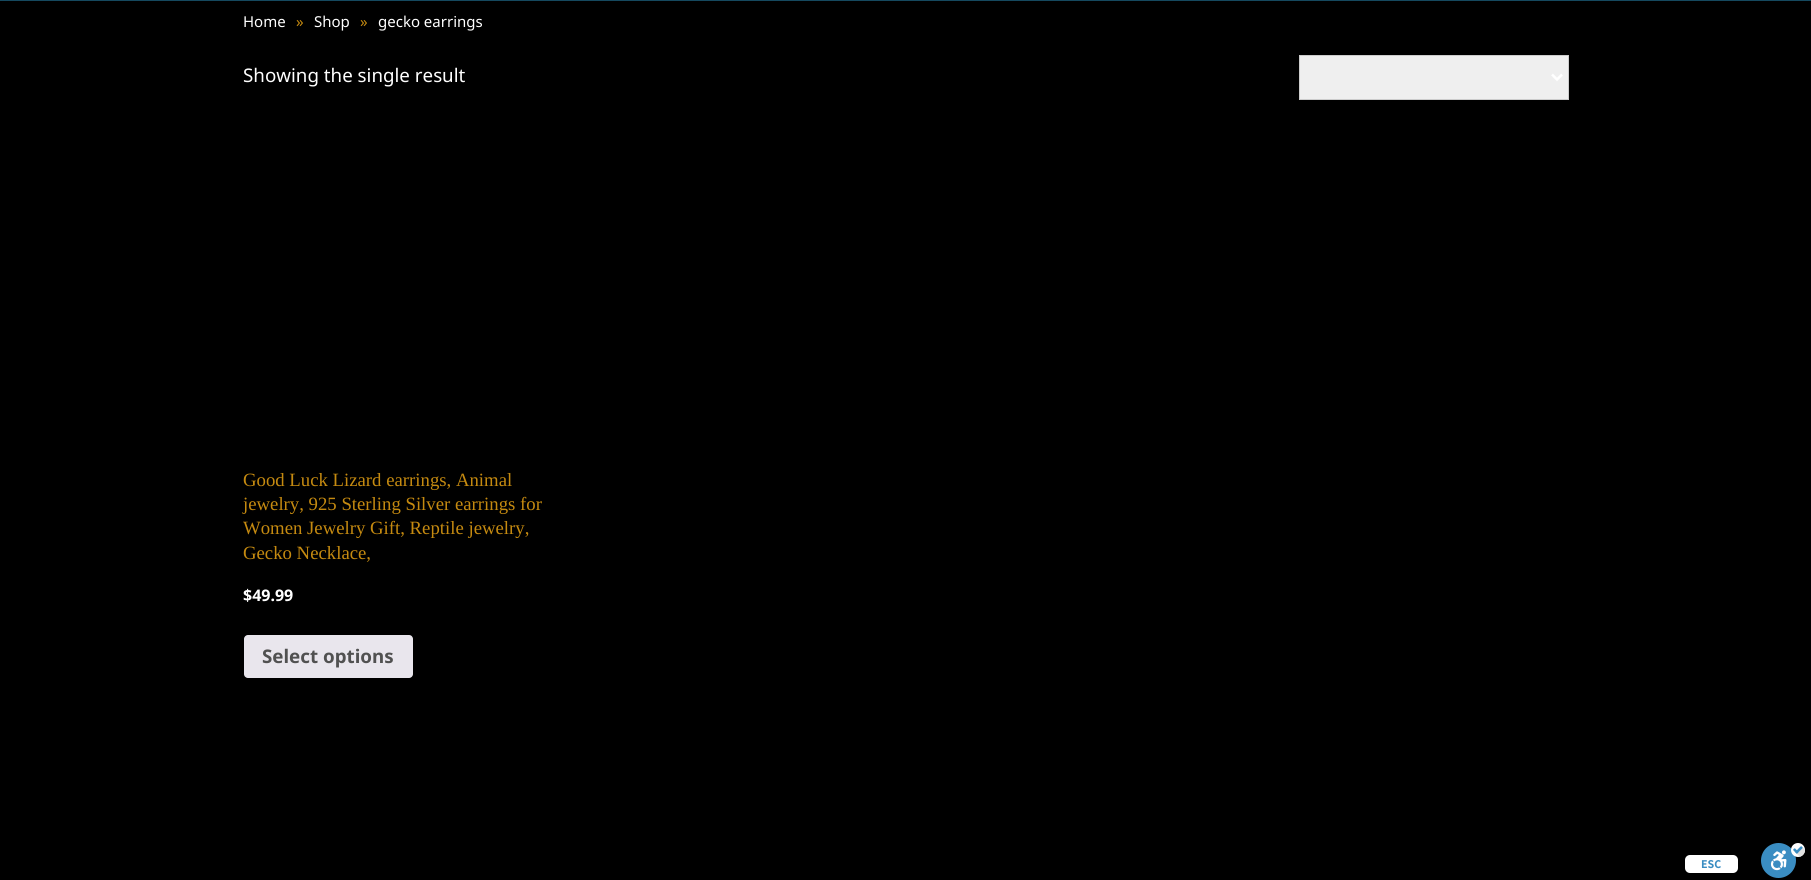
#include <cairo.h>
#include <math.h>
#include <stddef.h>

typedef struct { double x, y; const char *s; } line_t;

static void ink(cairo_t *ctx, unsigned color) {
    cairo_set_source_rgb(ctx, (color >> 16) / 255.0, (color >> 8 & 255) / 255.0, (color & 255) / 255.0);
}

static void round_path(cairo_t *ctx, double x, double y, double w, double h, double r) {
    cairo_new_sub_path(ctx);
    cairo_arc(ctx, x + w - r, y + h - r, r, 0, M_PI / 2);
    cairo_arc(ctx, x + r, y + h - r, r, M_PI / 2, M_PI);
    cairo_arc(ctx, x + r, y + r, r, M_PI, 1.5 * M_PI);
    cairo_arc(ctx, x + w - r, y + r, r, 1.5 * M_PI, 2 * M_PI);
    cairo_close_path(ctx);
}

static void paste(cairo_t *ctx, const char *path, double x, double y, double w, double h) {
    cairo_surface_t *image = cairo_image_surface_create_from_png(path);
    cairo_save(ctx);
    cairo_set_source_surface(ctx, image, x, y);
    cairo_rectangle(ctx, x, y, w, h);
    cairo_fill(ctx);
    cairo_restore(ctx);
    cairo_surface_destroy(image);
}

int main(void) {
    cairo_surface_t *surface = cairo_image_surface_create(CAIRO_FORMAT_RGB24, 1811, 880);
    cairo_t *ctx = cairo_create(surface);
    cairo_font_options_t *options = cairo_font_options_create();
    cairo_font_options_set_hint_metrics(options, CAIRO_HINT_METRICS_OFF);
    cairo_font_options_set_hint_style(options, CAIRO_HINT_STYLE_NONE);
    cairo_set_font_options(ctx, options);
    cairo_set_miter_limit(ctx, 4);
    ink(ctx, 0x000000);
    cairo_paint(ctx);
    cairo_select_font_face(ctx, "Noto Sans", CAIRO_FONT_SLANT_NORMAL, CAIRO_FONT_WEIGHT_NORMAL);
    cairo_set_font_size(ctx, 15);
    ink(ctx, 0xFFFFFF);
    cairo_move_to(ctx, 243, 27);
    cairo_show_text(ctx, "Home");
    ink(ctx, 0xC58A10);
    cairo_move_to(ctx, 296, 27);
    cairo_show_text(ctx, "»");
    ink(ctx, 0xFFFFFF);
    cairo_move_to(ctx, 314, 27);
    cairo_show_text(ctx, "Shop");
    ink(ctx, 0xC58A10);
    cairo_move_to(ctx, 360, 27);
    cairo_show_text(ctx, "»");
    ink(ctx, 0xFFFFFF);
    cairo_move_to(ctx, 378, 27);
    cairo_show_text(ctx, "gecko earrings");
    cairo_set_font_size(ctx, 18.75);
    cairo_move_to(ctx, 243, 82);
    cairo_show_text(ctx, "Showing the single result");
    ink(ctx, 0xEFEFEF);
    cairo_rectangle(ctx, 1299.5, 55.5, 269, 44);
    cairo_fill_preserve(ctx);
    ink(ctx, 0xCCCCCC);
    cairo_set_line_width(ctx, 1);
    cairo_stroke(ctx);
    cairo_new_path(ctx);
    cairo_move_to(ctx, 1552, 74.5);
    cairo_line_to(ctx, 1557, 79.5);
    cairo_line_to(ctx, 1562, 74.5);
    ink(ctx, 0xFFFFFF);
    cairo_set_line_width(ctx, 2.5);
    cairo_stroke(ctx);
    cairo_select_font_face(ctx, "Tinos", CAIRO_FONT_SLANT_NORMAL, CAIRO_FONT_WEIGHT_NORMAL);
    ink(ctx, 0xC58A10);
    {
        static const line_t items[] = {
            {243, 486, "Good Luck Lizard earrings, Animal"},
            {243, 510, "jewelry, 925 Sterling Silver earrings for"},
            {243, 534, "Women Jewelry Gift, Reptile jewelry,"},
            {243, 559, "Gecko Necklace,"},
        };
        for (size_t i = 0; i < sizeof items / sizeof *items; i++) {
            cairo_move_to(ctx, items[i].x, items[i].y);
            cairo_show_text(ctx, items[i].s);
        }
    }
    cairo_select_font_face(ctx, "Noto Sans", CAIRO_FONT_SLANT_NORMAL, CAIRO_FONT_WEIGHT_BOLD);
    cairo_set_font_size(ctx, 16);
    ink(ctx, 0xFFFFFF);
    cairo_move_to(ctx, 243, 601);
    cairo_show_text(ctx, "$49.99");
    ink(ctx, 0xE9E6ED);
    round_path(ctx, 244, 635, 169, 43, 4);
    cairo_fill(ctx);
    cairo_set_font_size(ctx, 18.75);
    ink(ctx, 0x515151);
    cairo_move_to(ctx, 262, 663);
    cairo_show_text(ctx, "Select options");
    ink(ctx, 0x15495F);
    cairo_rectangle(ctx, 0, 0, 1811, 1);
    cairo_fill(ctx);
    ink(ctx, 0xFFFFFF);
    round_path(ctx, 1685, 855, 53, 18, 5);
    cairo_fill(ctx);
    cairo_select_font_face(ctx, "Assistant", CAIRO_FONT_SLANT_NORMAL, CAIRO_FONT_WEIGHT_BOLD);
    cairo_set_font_size(ctx, 12);
    ink(ctx, 0x3A8DC2);
    cairo_move_to(ctx, 1701, 868);
    cairo_show_text(ctx, "ESC");
    paste(ctx, "media/1.png", 1761, 843, 44, 35);
    cairo_surface_write_to_png(surface, "image.png");
    cairo_font_options_destroy(options);
    cairo_destroy(ctx);
    cairo_surface_destroy(surface);
    return 0;
}
